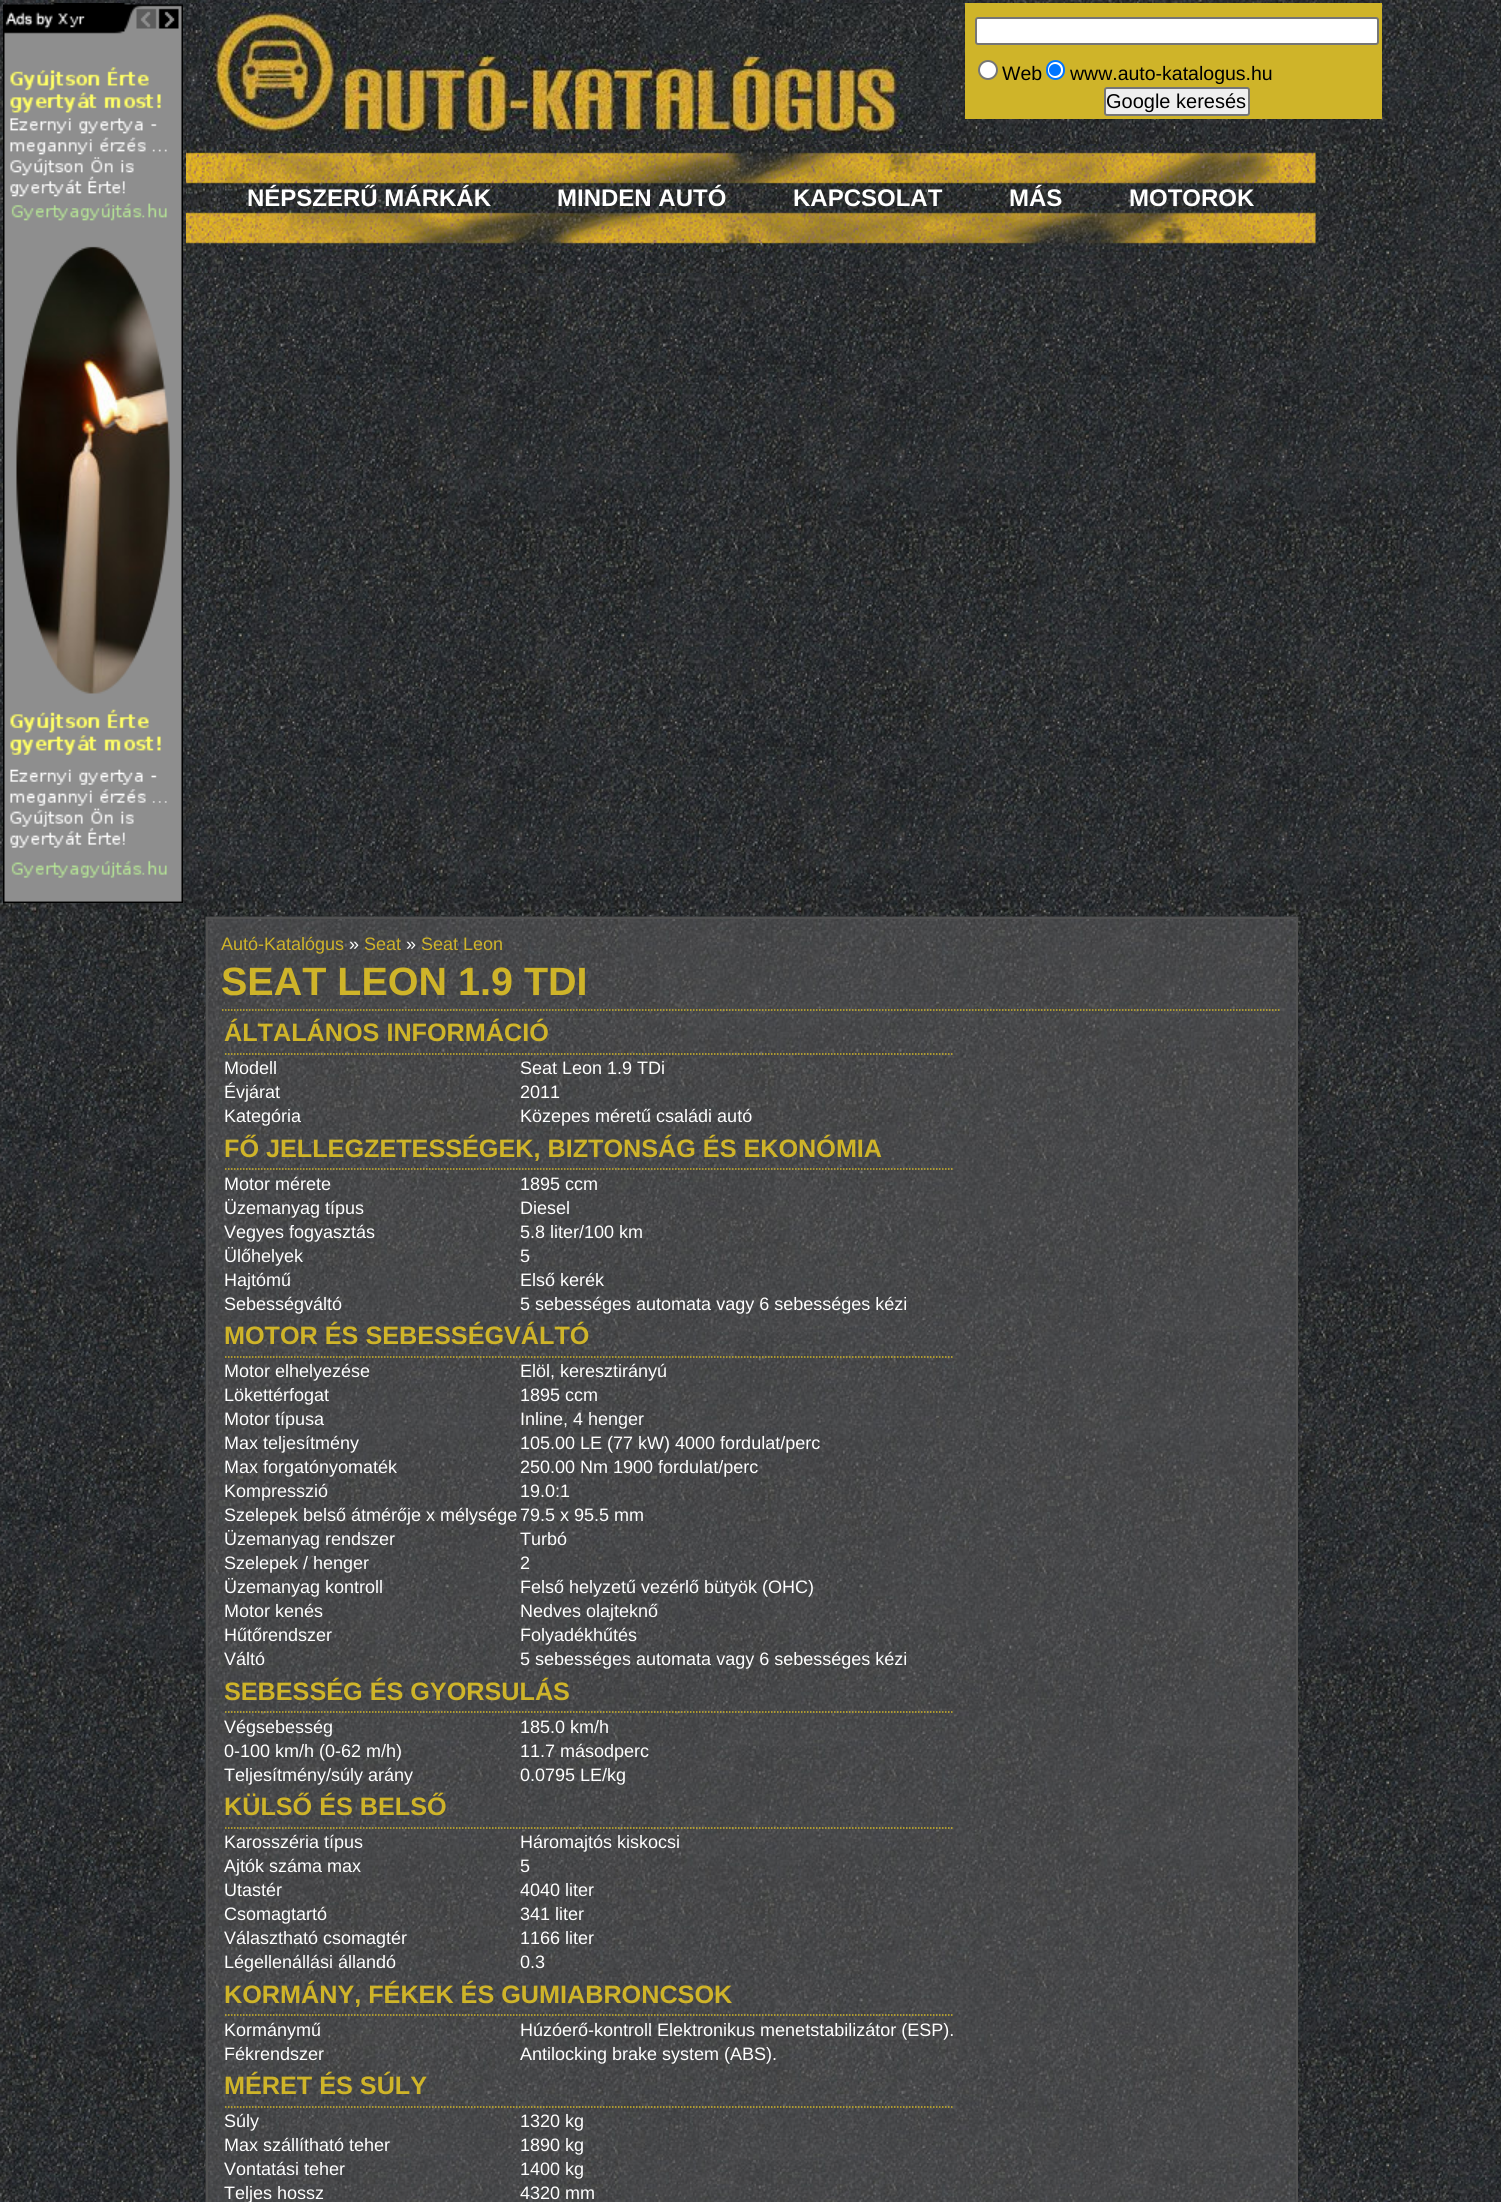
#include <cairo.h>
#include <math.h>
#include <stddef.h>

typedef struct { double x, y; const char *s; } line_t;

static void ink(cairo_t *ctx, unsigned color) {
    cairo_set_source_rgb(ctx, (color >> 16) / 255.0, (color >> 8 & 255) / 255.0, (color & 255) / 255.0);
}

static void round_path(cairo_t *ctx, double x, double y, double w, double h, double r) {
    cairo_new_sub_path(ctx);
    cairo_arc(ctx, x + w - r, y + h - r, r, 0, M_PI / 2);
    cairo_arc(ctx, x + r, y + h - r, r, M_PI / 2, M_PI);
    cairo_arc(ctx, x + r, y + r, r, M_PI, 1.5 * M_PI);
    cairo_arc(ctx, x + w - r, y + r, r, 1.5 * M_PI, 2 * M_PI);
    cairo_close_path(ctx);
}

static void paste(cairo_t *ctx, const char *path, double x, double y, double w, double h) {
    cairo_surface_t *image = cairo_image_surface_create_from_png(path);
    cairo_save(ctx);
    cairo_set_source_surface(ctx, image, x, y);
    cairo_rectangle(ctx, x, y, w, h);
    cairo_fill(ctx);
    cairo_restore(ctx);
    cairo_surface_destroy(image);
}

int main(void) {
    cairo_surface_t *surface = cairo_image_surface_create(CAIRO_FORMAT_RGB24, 1501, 2202);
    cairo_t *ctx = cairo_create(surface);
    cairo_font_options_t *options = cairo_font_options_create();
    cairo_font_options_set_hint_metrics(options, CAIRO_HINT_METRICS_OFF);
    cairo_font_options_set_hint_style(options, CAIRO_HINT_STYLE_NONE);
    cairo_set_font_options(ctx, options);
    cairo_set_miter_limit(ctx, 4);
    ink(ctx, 0xFFFFFF);
    cairo_paint(ctx);
    paste(ctx, "media/1.png", 0, 0, 1501, 2202);
    paste(ctx, "media/2.png", 3, 3, 180, 900);
    paste(ctx, "media/3.png", 186, 3, 1130, 270);
    paste(ctx, "media/4.png", 225, 144, 1053, 129);
    paste(ctx, "media/5.png", 205, 3, 737, 135);
    ink(ctx, 0xCFB429);
    cairo_rectangle(ctx, 965, 3, 417, 116);
    cairo_fill(ctx);
    ink(ctx, 0xFFFFFF);
    round_path(ctx, 976, 18, 402, 26, 2);
    cairo_fill_preserve(ctx);
    ink(ctx, 0x767676);
    cairo_stroke(ctx);
    ink(ctx, 0xFFFFFF);
    cairo_arc(ctx, 988, 70, 9, 0, 2 * M_PI);
    cairo_fill_preserve(ctx);
    ink(ctx, 0x767676);
    cairo_stroke(ctx);
    cairo_select_font_face(ctx, "Liberation Sans", CAIRO_FONT_SLANT_NORMAL, CAIRO_FONT_WEIGHT_NORMAL);
    cairo_set_font_size(ctx, 19.5);
    ink(ctx, 0x000000);
    cairo_move_to(ctx, 1002, 80);
    cairo_show_text(ctx, "Web");
    ink(ctx, 0xFFFFFF);
    round_path(ctx, 1047, 61, 17, 18, 8.5);
    cairo_fill_preserve(ctx);
    ink(ctx, 0x0075FF);
    cairo_stroke(ctx);
    cairo_arc(ctx, 1055, 70, 6, 0, 2 * M_PI);
    cairo_fill(ctx);
    ink(ctx, 0x000000);
    cairo_move_to(ctx, 1070, 80);
    cairo_show_text(ctx, "www.auto-katalogus.hu");
    ink(ctx, 0xEFEFEF);
    round_path(ctx, 1105, 88, 144, 27, 2);
    cairo_fill_preserve(ctx);
    ink(ctx, 0x767676);
    cairo_stroke(ctx);
    cairo_set_font_size(ctx, 20);
    ink(ctx, 0x000000);
    cairo_move_to(ctx, 1106, 108);
    cairo_show_text(ctx, "Google keresés");
    cairo_select_font_face(ctx, "Liberation Sans", CAIRO_FONT_SLANT_NORMAL, CAIRO_FONT_WEIGHT_BOLD);
    cairo_set_font_size(ctx, 24);
    ink(ctx, 0xFFFFFF);
    {
        static const line_t items[] = {
            {247, 206, "NÉPSZERŰ MÁRKÁK"},
            {557, 206, "MINDEN AUTÓ"},
            {793, 206, "KAPCSOLAT"},
            {1009, 206, "MÁS"},
            {1129, 206, "MOTOROK"},
        };
        for (size_t i = 0; i < sizeof items / sizeof *items; i++) {
            cairo_move_to(ctx, items[i].x, items[i].y);
            cairo_show_text(ctx, items[i].s);
        }
    }
    paste(ctx, "media/6.png", 205, 916, 1093, 1286);
    cairo_rectangle(ctx, 207, 918, 1090, 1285);
    ink(ctx, 0x515151);
    cairo_stroke(ctx);
    cairo_select_font_face(ctx, "Liberation Sans", CAIRO_FONT_SLANT_NORMAL, CAIRO_FONT_WEIGHT_NORMAL);
    cairo_set_font_size(ctx, 18);
    ink(ctx, 0xCFB429);
    cairo_move_to(ctx, 221, 950);
    cairo_show_text(ctx, "Autó-Katalógus");
    ink(ctx, 0xFFFFFF);
    cairo_move_to(ctx, 349, 950);
    cairo_show_text(ctx, "»");
    ink(ctx, 0xCFB429);
    cairo_move_to(ctx, 364, 950);
    cairo_show_text(ctx, "Seat");
    ink(ctx, 0xFFFFFF);
    cairo_move_to(ctx, 406, 950);
    cairo_show_text(ctx, "»");
    ink(ctx, 0xCFB429);
    cairo_move_to(ctx, 421, 950);
    cairo_show_text(ctx, "Seat Leon");
    cairo_new_path(ctx);
    cairo_move_to(ctx, 222, 1010);
    cairo_line_to(ctx, 1281, 1010);
    cairo_set_line_width(ctx, 1.5);
    cairo_set_dash(ctx, (double[]){1.5, 1.5}, 2, 0);
    cairo_stroke(ctx);
    cairo_select_font_face(ctx, "Liberation Sans", CAIRO_FONT_SLANT_NORMAL, CAIRO_FONT_WEIGHT_BOLD);
    cairo_set_font_size(ctx, 39.5);
    cairo_move_to(ctx, 221, 995);
    cairo_show_text(ctx, "SEAT LEON 1.9 TDI");
    cairo_new_path(ctx);
    cairo_move_to(ctx, 225, 1054);
    cairo_line_to(ctx, 954, 1054);
    cairo_stroke(ctx);
    cairo_set_font_size(ctx, 25.2);
    cairo_move_to(ctx, 224, 1041);
    cairo_show_text(ctx, "ÁLTALÁNOS INFORMÁCIÓ");
    cairo_select_font_face(ctx, "Liberation Sans", CAIRO_FONT_SLANT_NORMAL, CAIRO_FONT_WEIGHT_NORMAL);
    cairo_set_font_size(ctx, 18);
    ink(ctx, 0xFFFFFF);
    {
        static const line_t items[] = {
            {224, 1074, "Modell"},
            {520, 1074, "Seat Leon 1.9 TDi"},
            {224, 1098, "Évjárat"},
            {520, 1098, "2011"},
            {224, 1122, "Kategória"},
            {520, 1122, "Közepes méretű családi autó"},
        };
        for (size_t i = 0; i < sizeof items / sizeof *items; i++) {
            cairo_move_to(ctx, items[i].x, items[i].y);
            cairo_show_text(ctx, items[i].s);
        }
    }
    cairo_new_path(ctx);
    cairo_move_to(ctx, 225, 1169);
    cairo_line_to(ctx, 954, 1169);
    ink(ctx, 0xCFB429);
    cairo_stroke(ctx);
    cairo_select_font_face(ctx, "Liberation Sans", CAIRO_FONT_SLANT_NORMAL, CAIRO_FONT_WEIGHT_BOLD);
    cairo_set_font_size(ctx, 25.2);
    cairo_move_to(ctx, 224, 1157);
    cairo_show_text(ctx, "FŐ JELLEGZETESSÉGEK, BIZTONSÁG ÉS EKONÓMIA");
    cairo_select_font_face(ctx, "Liberation Sans", CAIRO_FONT_SLANT_NORMAL, CAIRO_FONT_WEIGHT_NORMAL);
    cairo_set_font_size(ctx, 18);
    ink(ctx, 0xFFFFFF);
    {
        static const line_t items[] = {
            {224, 1190, "Motor mérete"},
            {520, 1190, "1895 ccm"},
            {224, 1214, "Üzemanyag típus"},
            {520, 1214, "Diesel"},
            {224, 1238, "Vegyes fogyasztás"},
            {520, 1238, "5.8 liter/100 km"},
            {224, 1262, "Ülőhelyek"},
            {520, 1262, "5"},
            {224, 1286, "Hajtómű"},
            {520, 1286, "Első kerék"},
            {224, 1310, "Sebességváltó"},
            {520, 1310, "5 sebességes automata vagy 6 sebességes kézi"},
        };
        for (size_t i = 0; i < sizeof items / sizeof *items; i++) {
            cairo_move_to(ctx, items[i].x, items[i].y);
            cairo_show_text(ctx, items[i].s);
        }
    }
    cairo_new_path(ctx);
    cairo_move_to(ctx, 225, 1357);
    cairo_line_to(ctx, 954, 1357);
    ink(ctx, 0xCFB429);
    cairo_stroke(ctx);
    cairo_select_font_face(ctx, "Liberation Sans", CAIRO_FONT_SLANT_NORMAL, CAIRO_FONT_WEIGHT_BOLD);
    cairo_set_font_size(ctx, 25.2);
    cairo_move_to(ctx, 224, 1344);
    cairo_show_text(ctx, "MOTOR ÉS SEBESSÉGVÁLTÓ");
    cairo_select_font_face(ctx, "Liberation Sans", CAIRO_FONT_SLANT_NORMAL, CAIRO_FONT_WEIGHT_NORMAL);
    cairo_set_font_size(ctx, 18);
    ink(ctx, 0xFFFFFF);
    {
        static const line_t items[] = {
            {224, 1377, "Motor elhelyezése"},
            {520, 1377, "Elöl, keresztirányú"},
            {224, 1401, "Lökettérfogat"},
            {520, 1401, "1895 ccm"},
            {224, 1425, "Motor típusa"},
            {520, 1425, "Inline, 4 henger"},
            {224, 1449, "Max teljesítmény"},
            {520, 1449, "105.00 LE (77 kW) 4000 fordulat/perc"},
            {224, 1473, "Max forgatónyomaték"},
            {520, 1473, "250.00 Nm 1900 fordulat/perc"},
            {224, 1497, "Kompresszió"},
            {520, 1497, "19.0:1"},
            {224, 1521, "Szelepek belső átmérője x mélysége"},
            {520, 1521, "79.5 x 95.5 mm"},
            {224, 1545, "Üzemanyag rendszer"},
            {520, 1545, "Turbó"},
            {224, 1569, "Szelepek / henger"},
            {520, 1569, "2"},
            {224, 1593, "Üzemanyag kontroll"},
            {520, 1593, "Felső helyzetű vezérlő bütyök (OHC)"},
            {224, 1617, "Motor kenés"},
            {520, 1617, "Nedves olajteknő"},
            {224, 1641, "Hűtőrendszer"},
            {520, 1641, "Folyadékhűtés"},
            {224, 1665, "Váltó"},
            {520, 1665, "5 sebességes automata vagy 6 sebességes kézi"},
        };
        for (size_t i = 0; i < sizeof items / sizeof *items; i++) {
            cairo_move_to(ctx, items[i].x, items[i].y);
            cairo_show_text(ctx, items[i].s);
        }
    }
    cairo_new_path(ctx);
    cairo_move_to(ctx, 225, 1712);
    cairo_line_to(ctx, 954, 1712);
    ink(ctx, 0xCFB429);
    cairo_stroke(ctx);
    cairo_select_font_face(ctx, "Liberation Sans", CAIRO_FONT_SLANT_NORMAL, CAIRO_FONT_WEIGHT_BOLD);
    cairo_set_font_size(ctx, 25.2);
    cairo_move_to(ctx, 224, 1700);
    cairo_show_text(ctx, "SEBESSÉG ÉS GYORSULÁS");
    cairo_select_font_face(ctx, "Liberation Sans", CAIRO_FONT_SLANT_NORMAL, CAIRO_FONT_WEIGHT_NORMAL);
    cairo_set_font_size(ctx, 18);
    ink(ctx, 0xFFFFFF);
    {
        static const line_t items[] = {
            {224, 1733, "Végsebesség"},
            {520, 1733, "185.0 km/h"},
            {224, 1757, "0-100 km/h (0-62 m/h)"},
            {520, 1757, "11.7 másodperc"},
            {224, 1781, "Teljesítmény/súly arány"},
            {520, 1781, "0.0795 LE/kg"},
        };
        for (size_t i = 0; i < sizeof items / sizeof *items; i++) {
            cairo_move_to(ctx, items[i].x, items[i].y);
            cairo_show_text(ctx, items[i].s);
        }
    }
    cairo_new_path(ctx);
    cairo_move_to(ctx, 225, 1828);
    cairo_line_to(ctx, 954, 1828);
    ink(ctx, 0xCFB429);
    cairo_stroke(ctx);
    cairo_select_font_face(ctx, "Liberation Sans", CAIRO_FONT_SLANT_NORMAL, CAIRO_FONT_WEIGHT_BOLD);
    cairo_set_font_size(ctx, 25.2);
    cairo_move_to(ctx, 224, 1815);
    cairo_show_text(ctx, "KÜLSŐ ÉS BELSŐ");
    cairo_select_font_face(ctx, "Liberation Sans", CAIRO_FONT_SLANT_NORMAL, CAIRO_FONT_WEIGHT_NORMAL);
    cairo_set_font_size(ctx, 18);
    ink(ctx, 0xFFFFFF);
    {
        static const line_t items[] = {
            {224, 1848, "Karosszéria típus"},
            {520, 1848, "Háromajtós kiskocsi"},
            {224, 1872, "Ajtók száma max"},
            {520, 1872, "5"},
            {224, 1896, "Utastér"},
            {520, 1896, "4040 liter"},
            {224, 1920, "Csomagtartó"},
            {520, 1920, "341 liter"},
            {224, 1944, "Választható csomagtér"},
            {520, 1944, "1166 liter"},
            {224, 1968, "Légellenállási állandó"},
            {520, 1968, "0.3"},
        };
        for (size_t i = 0; i < sizeof items / sizeof *items; i++) {
            cairo_move_to(ctx, items[i].x, items[i].y);
            cairo_show_text(ctx, items[i].s);
        }
    }
    cairo_new_path(ctx);
    cairo_move_to(ctx, 225, 2015);
    cairo_line_to(ctx, 954, 2015);
    ink(ctx, 0xCFB429);
    cairo_stroke(ctx);
    cairo_select_font_face(ctx, "Liberation Sans", CAIRO_FONT_SLANT_NORMAL, CAIRO_FONT_WEIGHT_BOLD);
    cairo_set_font_size(ctx, 25.2);
    cairo_move_to(ctx, 224, 2003);
    cairo_show_text(ctx, "KORMÁNY, FÉKEK ÉS GUMIABRONCSOK");
    cairo_select_font_face(ctx, "Liberation Sans", CAIRO_FONT_SLANT_NORMAL, CAIRO_FONT_WEIGHT_NORMAL);
    cairo_set_font_size(ctx, 18);
    ink(ctx, 0xFFFFFF);
    {
        static const line_t items[] = {
            {224, 2036, "Kormánymű"},
            {520, 2036, "Húzóerő-kontroll Elektronikus menetstabilizátor (ESP)."},
            {224, 2060, "Fékrendszer"},
            {520, 2060, "Antilocking brake system (ABS)."},
        };
        for (size_t i = 0; i < sizeof items / sizeof *items; i++) {
            cairo_move_to(ctx, items[i].x, items[i].y);
            cairo_show_text(ctx, items[i].s);
        }
    }
    cairo_new_path(ctx);
    cairo_move_to(ctx, 225, 2107);
    cairo_line_to(ctx, 954, 2107);
    ink(ctx, 0xCFB429);
    cairo_stroke(ctx);
    cairo_select_font_face(ctx, "Liberation Sans", CAIRO_FONT_SLANT_NORMAL, CAIRO_FONT_WEIGHT_BOLD);
    cairo_set_font_size(ctx, 25.2);
    cairo_move_to(ctx, 224, 2094);
    cairo_show_text(ctx, "MÉRET ÉS SÚLY");
    cairo_select_font_face(ctx, "Liberation Sans", CAIRO_FONT_SLANT_NORMAL, CAIRO_FONT_WEIGHT_NORMAL);
    cairo_set_font_size(ctx, 18);
    ink(ctx, 0xFFFFFF);
    {
        static const line_t items[] = {
            {224, 2127, "Súly"},
            {520, 2127, "1320 kg"},
            {224, 2151, "Max szállítható teher"},
            {520, 2151, "1890 kg"},
            {224, 2175, "Vontatási teher"},
            {520, 2175, "1400 kg"},
            {224, 2199, "Teljes hossz"},
            {520, 2199, "4320 mm"},
        };
        for (size_t i = 0; i < sizeof items / sizeof *items; i++) {
            cairo_move_to(ctx, items[i].x, items[i].y);
            cairo_show_text(ctx, items[i].s);
        }
    }
    cairo_surface_write_to_png(surface, "image.png");
    cairo_font_options_destroy(options);
    cairo_destroy(ctx);
    cairo_surface_destroy(surface);
    return 0;
}
